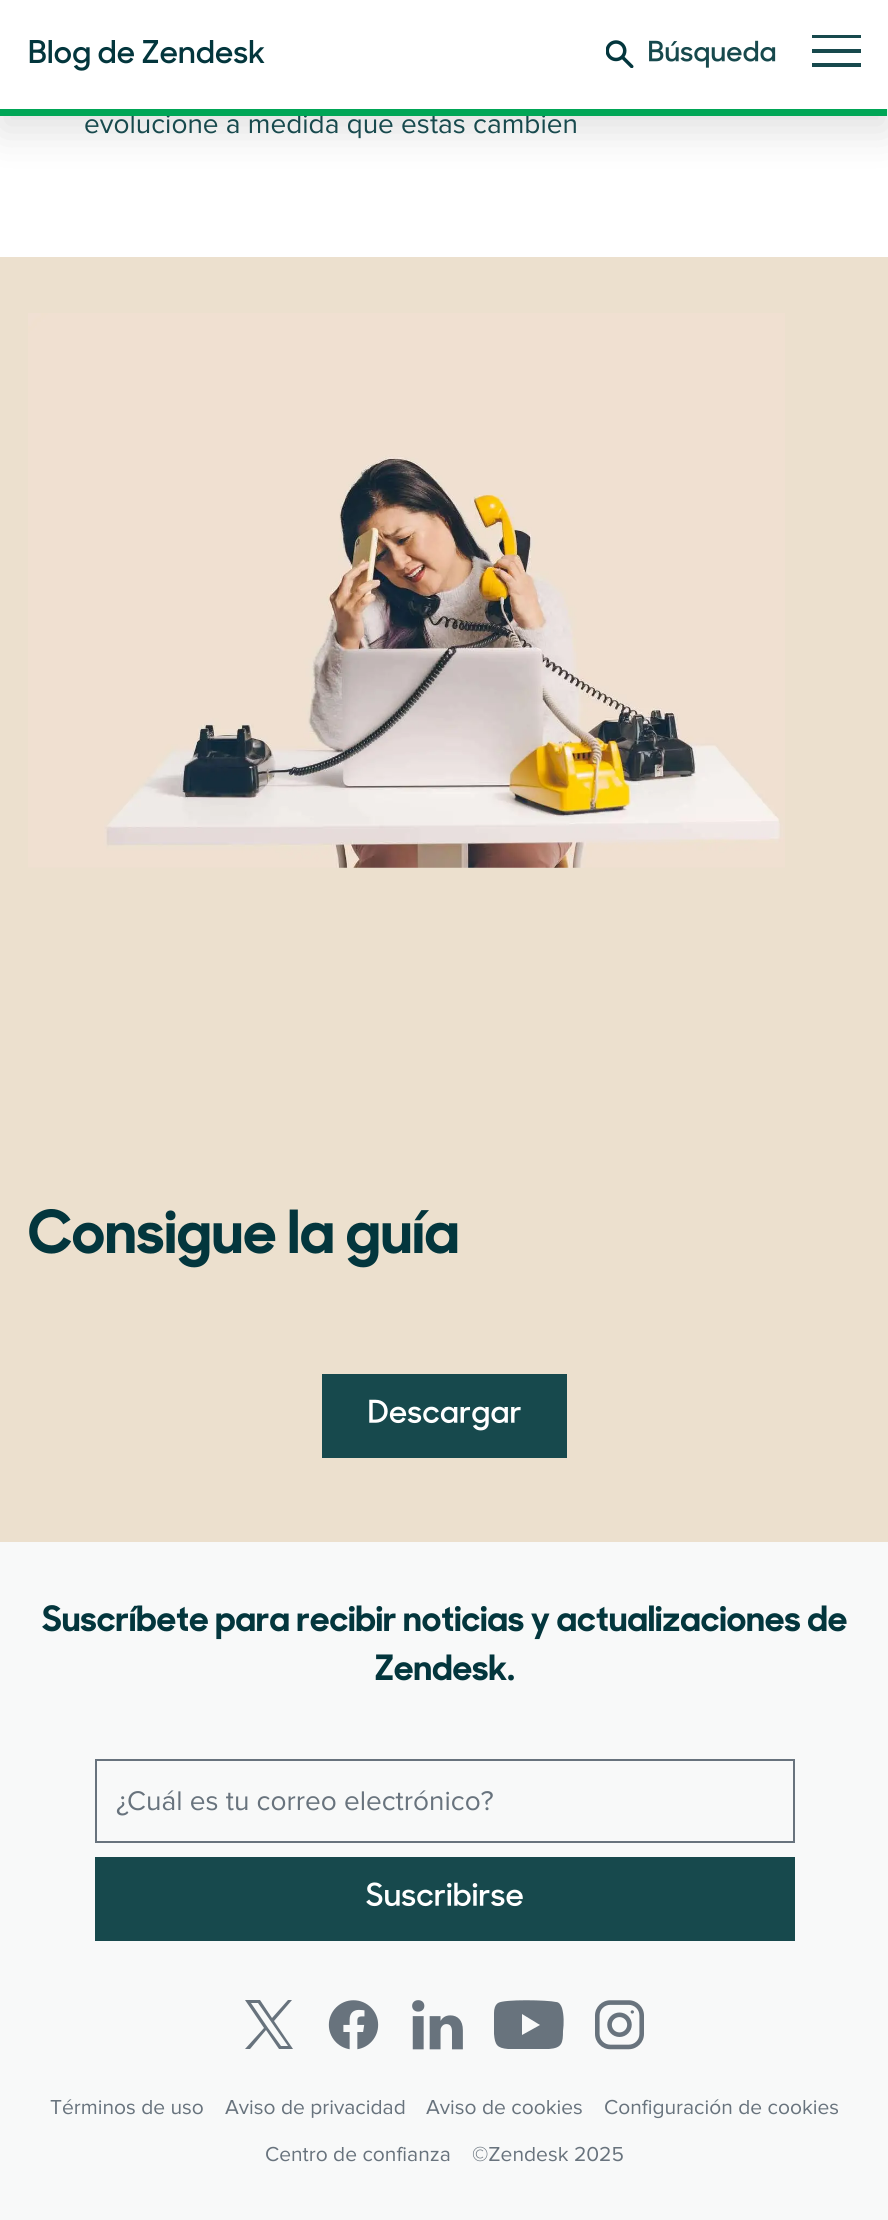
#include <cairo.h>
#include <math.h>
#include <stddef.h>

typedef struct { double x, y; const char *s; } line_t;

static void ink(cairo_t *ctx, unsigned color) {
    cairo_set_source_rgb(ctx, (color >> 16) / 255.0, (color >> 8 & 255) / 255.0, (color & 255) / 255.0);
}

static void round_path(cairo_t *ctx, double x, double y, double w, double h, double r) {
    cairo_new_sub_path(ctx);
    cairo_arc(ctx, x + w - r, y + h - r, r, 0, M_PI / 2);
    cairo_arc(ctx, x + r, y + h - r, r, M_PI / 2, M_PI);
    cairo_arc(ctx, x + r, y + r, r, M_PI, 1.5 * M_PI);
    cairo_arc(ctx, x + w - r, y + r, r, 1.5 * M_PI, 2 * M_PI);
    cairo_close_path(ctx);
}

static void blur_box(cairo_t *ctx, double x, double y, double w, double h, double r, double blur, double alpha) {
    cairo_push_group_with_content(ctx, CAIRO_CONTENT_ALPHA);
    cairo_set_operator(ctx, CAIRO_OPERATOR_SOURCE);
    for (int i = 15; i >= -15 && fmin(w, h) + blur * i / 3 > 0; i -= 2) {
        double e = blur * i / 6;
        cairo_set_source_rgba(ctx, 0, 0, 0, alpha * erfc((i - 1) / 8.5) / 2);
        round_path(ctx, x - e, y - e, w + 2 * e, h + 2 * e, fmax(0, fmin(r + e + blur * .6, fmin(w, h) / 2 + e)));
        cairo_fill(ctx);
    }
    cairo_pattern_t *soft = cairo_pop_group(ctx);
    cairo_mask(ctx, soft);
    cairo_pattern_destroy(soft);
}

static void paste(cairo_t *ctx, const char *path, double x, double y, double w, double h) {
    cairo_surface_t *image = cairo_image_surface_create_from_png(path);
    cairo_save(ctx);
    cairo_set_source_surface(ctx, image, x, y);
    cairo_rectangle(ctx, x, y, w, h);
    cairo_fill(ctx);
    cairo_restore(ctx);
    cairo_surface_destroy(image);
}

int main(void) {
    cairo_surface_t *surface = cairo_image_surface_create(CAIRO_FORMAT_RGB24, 888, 2220);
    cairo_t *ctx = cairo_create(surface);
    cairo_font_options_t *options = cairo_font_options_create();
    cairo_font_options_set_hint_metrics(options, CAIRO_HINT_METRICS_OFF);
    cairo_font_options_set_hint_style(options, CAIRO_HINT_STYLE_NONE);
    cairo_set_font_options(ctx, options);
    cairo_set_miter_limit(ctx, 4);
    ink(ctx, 0xF8F9F9);
    cairo_paint(ctx);
    ink(ctx, 0xFFFFFF);
    cairo_rectangle(ctx, 0, 116, 888, 141);
    cairo_fill(ctx);
    ink(ctx, 0x000000);
    blur_box(ctx, 0, 12, 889, 118, 0, 21, 0.13);
    ink(ctx, 0xFFFFFF);
    cairo_rectangle(ctx, 0, 0, 888, 109);
    cairo_fill(ctx);
    paste(ctx, "media/1.png", 29, 40, 236, 31);
    paste(ctx, "media/2.png", 606, 40, 28, 28);
    paste(ctx, "media/3.png", 649, 40, 127, 28);
    ink(ctx, 0x17494D);
    cairo_new_path(ctx);
    cairo_move_to(ctx, 861, 63);
    cairo_line_to(ctx, 861, 67);
    cairo_line_to(ctx, 812, 67);
    cairo_line_to(ctx, 812, 63);
    cairo_close_path(ctx);
    cairo_move_to(ctx, 861, 49);
    cairo_line_to(ctx, 861, 53);
    cairo_line_to(ctx, 812, 53);
    cairo_line_to(ctx, 812, 49);
    cairo_close_path(ctx);
    cairo_move_to(ctx, 861, 35);
    cairo_line_to(ctx, 861, 38);
    cairo_line_to(ctx, 812, 38);
    cairo_line_to(ctx, 812, 35);
    cairo_close_path(ctx);
    cairo_fill(ctx);
    ink(ctx, 0xF3F0EE);
    cairo_rectangle(ctx, 887, 109, 1, 7);
    cairo_fill(ctx);
    cairo_select_font_face(ctx, "Proxima Nova", CAIRO_FONT_SLANT_NORMAL, CAIRO_FONT_WEIGHT_NORMAL);
    cairo_set_font_size(ctx, 28);
    ink(ctx, 0x17494D);
    cairo_move_to(ctx, 84, 133);
    cairo_show_text(ctx, "evolucione a medida que estas cambien");
    ink(ctx, 0x00A656);
    cairo_rectangle(ctx, 0, 109, 887, 7);
    cairo_fill(ctx);
    ink(ctx, 0xECE0CE);
    cairo_rectangle(ctx, 0, 257, 888, 1285);
    cairo_fill(ctx);
    paste(ctx, "media/4.png", 28, 313, 757, 555);
    paste(ctx, "media/5.png", 29, 1209, 429, 59);
    ink(ctx, 0x17494D);
    cairo_rectangle(ctx, 322, 1374, 245, 84);
    cairo_fill(ctx);
    paste(ctx, "media/6.png", 369, 1399, 152, 32);
    paste(ctx, "media/7.png", 42, 1605, 805, 35);
    paste(ctx, "media/8.png", 375, 1654, 139, 27);
    cairo_rectangle(ctx, 96, 1760, 698, 82);
    ink(ctx, 0x68737D);
    cairo_stroke(ctx);
    cairo_move_to(ctx, 116, 1810);
    cairo_show_text(ctx, "¿Cuál es tu correo electrónico?");
    ink(ctx, 0x17494D);
    cairo_rectangle(ctx, 95, 1857, 700, 84);
    cairo_fill(ctx);
    paste(ctx, "media/9.png", 366, 1882, 157, 25);
    ink(ctx, 0x68737D);
    cairo_new_path(ctx);
    cairo_move_to(ctx, 274, 2021);
    cairo_line_to(ctx, 292, 2000);
    cairo_line_to(ctx, 288, 2000);
    cairo_line_to(ctx, 272, 2018);
    cairo_line_to(ctx, 260, 2000);
    cairo_line_to(ctx, 245, 2000);
    cairo_line_to(ctx, 264, 2028);
    cairo_line_to(ctx, 245, 2049);
    cairo_line_to(ctx, 250, 2049);
    cairo_line_to(ctx, 266, 2030);
    cairo_line_to(ctx, 279, 2049);
    cairo_line_to(ctx, 293, 2049);
    cairo_close_path(ctx);
    cairo_move_to(ctx, 268, 2028);
    cairo_line_to(ctx, 251, 2003);
    cairo_line_to(ctx, 258, 2003);
    cairo_line_to(ctx, 288, 2046);
    cairo_line_to(ctx, 281, 2046);
    cairo_close_path(ctx);
    cairo_fill(ctx);
    paste(ctx, "media/10.png", 328, 2000, 51, 50);
    paste(ctx, "media/11.png", 412, 2000, 51, 50);
    cairo_save(ctx);
    cairo_rectangle(ctx, 494, 1997, 70, 56);
    cairo_clip(ctx);
    cairo_new_path(ctx);
    cairo_move_to(ctx, 562, 2008);
    cairo_curve_to(ctx, 561, 2005, 559, 2002, 556, 2002);
    cairo_curve_to(ctx, 548, 2000, 504, 1999, 498, 2003);
    cairo_curve_to(ctx, 495, 2005, 494, 2009, 494, 2013);
    cairo_curve_to(ctx, 493, 2020, 493, 2027, 494, 2034);
    cairo_curve_to(ctx, 495, 2045, 497, 2048, 508, 2049);
    cairo_line_to(ctx, 529, 2049);
    cairo_line_to(ctx, 549, 2049);
    cairo_curve_to(ctx, 562, 2048, 563, 2043, 563, 2031);
    cairo_curve_to(ctx, 564, 2024, 564, 2015, 562, 2008);
    cairo_move_to(ctx, 522, 2035);
    cairo_line_to(ctx, 522, 2014);
    cairo_line_to(ctx, 540, 2025);
    cairo_close_path(ctx);
    cairo_fill(ctx);
    cairo_restore(ctx);
    paste(ctx, "media/12.png", 595, 2000, 49, 50);
    cairo_set_font_size(ctx, 21);
    {
        static const line_t items[] = {
            {50, 2114, "Términos de uso"},
            {225, 2114, "Aviso de privacidad"},
            {426, 2114, "Aviso de cookies"},
            {604, 2114, "Configuración de cookies"},
            {265, 2161, "Centro de confianza"},
            {472, 2161, "©Zendesk 2025"},
        };
        for (size_t i = 0; i < sizeof items / sizeof *items; i++) {
            cairo_move_to(ctx, items[i].x, items[i].y);
            cairo_show_text(ctx, items[i].s);
        }
    }
    cairo_surface_write_to_png(surface, "image.png");
    cairo_font_options_destroy(options);
    cairo_destroy(ctx);
    cairo_surface_destroy(surface);
    return 0;
}
